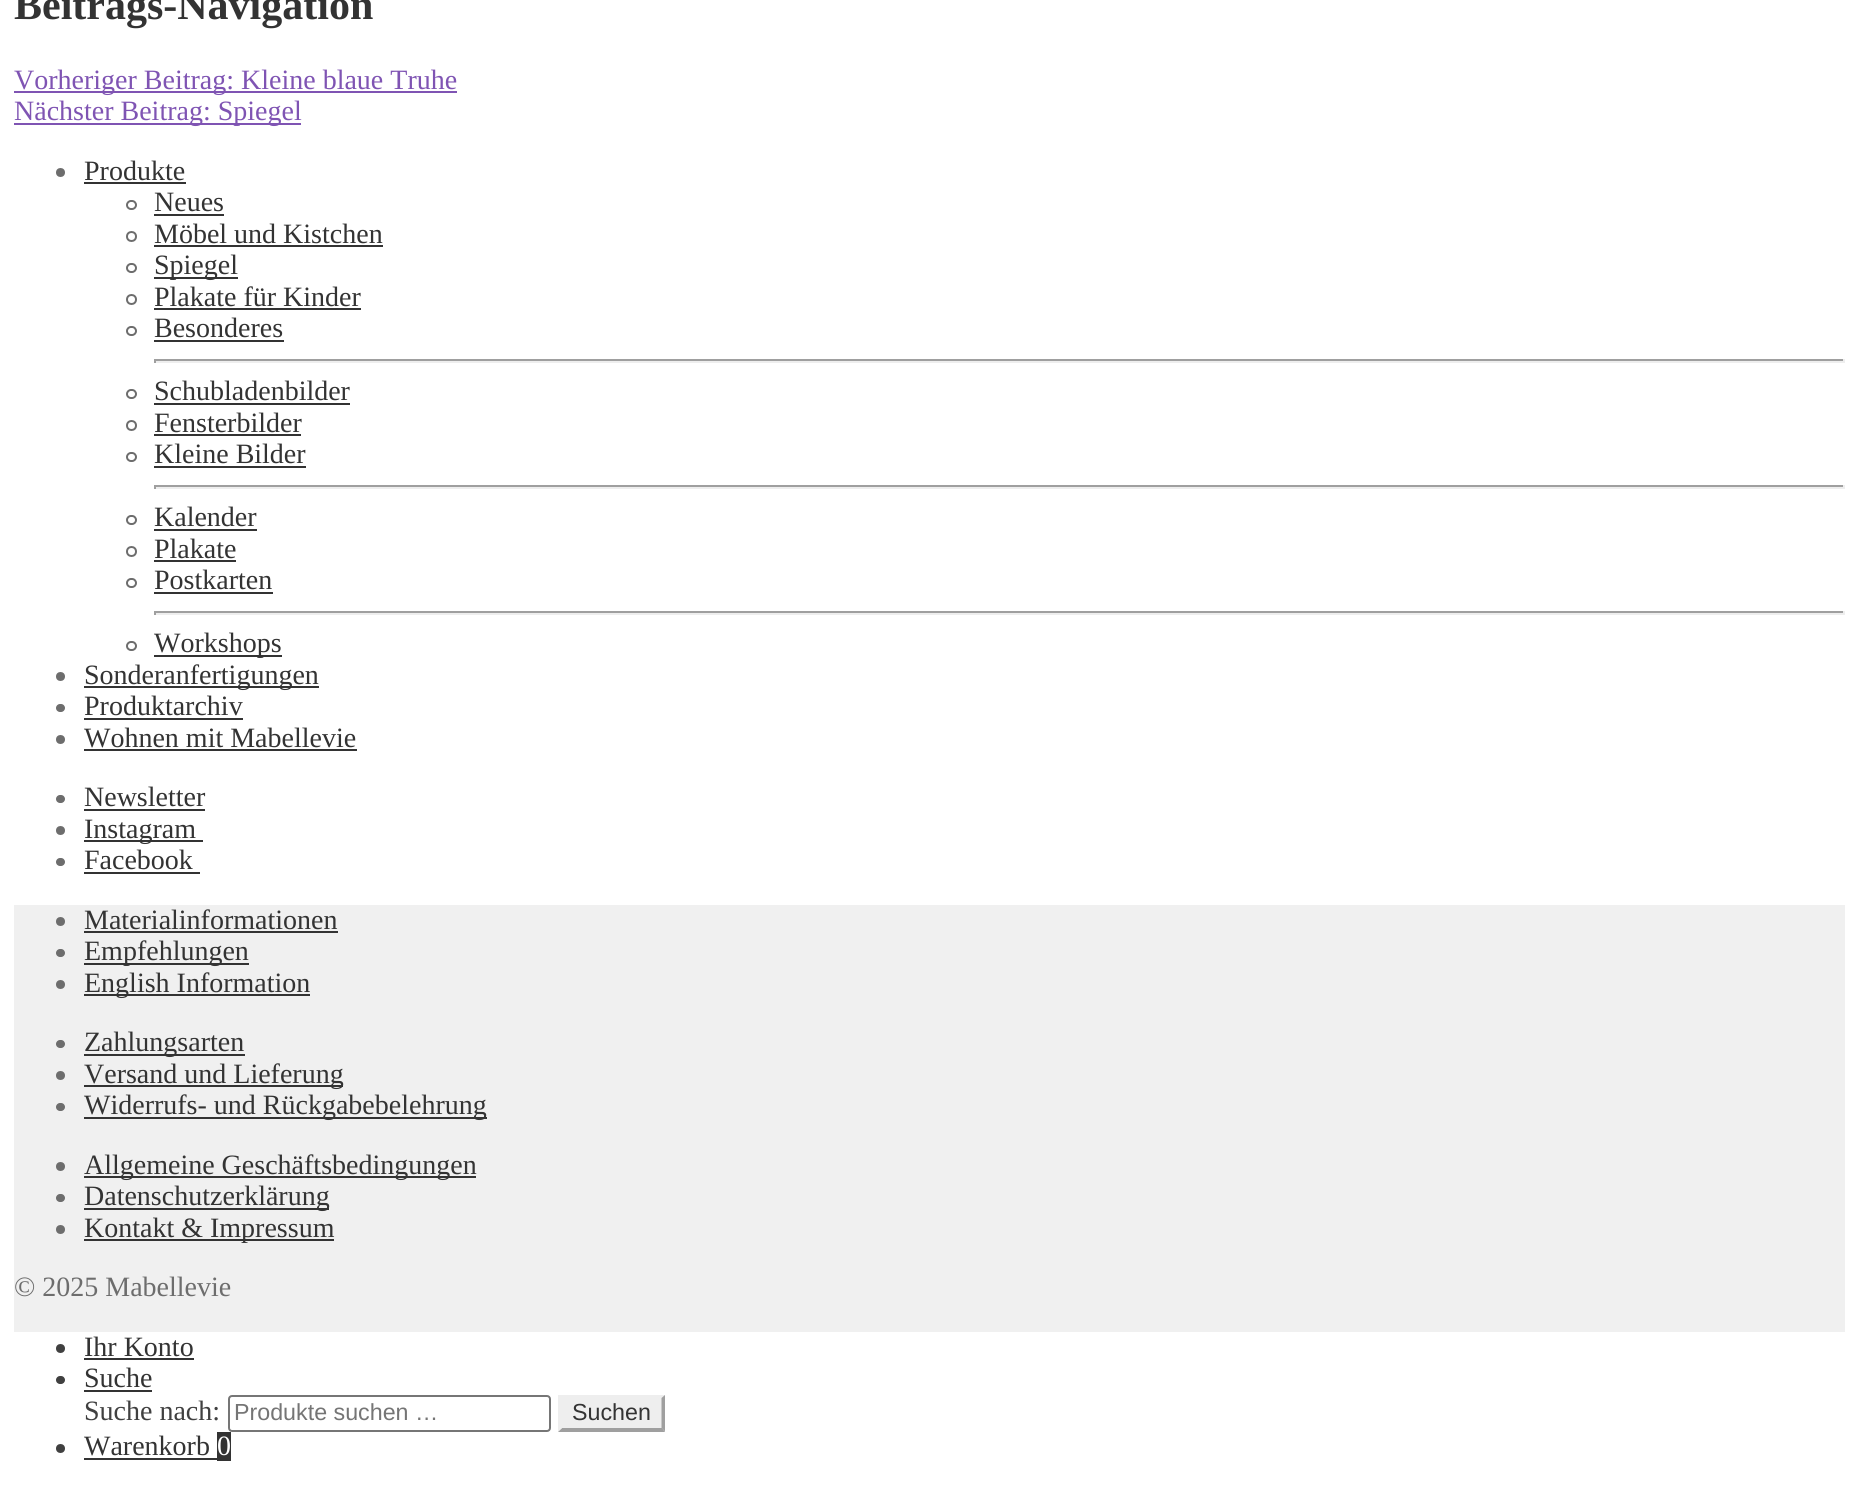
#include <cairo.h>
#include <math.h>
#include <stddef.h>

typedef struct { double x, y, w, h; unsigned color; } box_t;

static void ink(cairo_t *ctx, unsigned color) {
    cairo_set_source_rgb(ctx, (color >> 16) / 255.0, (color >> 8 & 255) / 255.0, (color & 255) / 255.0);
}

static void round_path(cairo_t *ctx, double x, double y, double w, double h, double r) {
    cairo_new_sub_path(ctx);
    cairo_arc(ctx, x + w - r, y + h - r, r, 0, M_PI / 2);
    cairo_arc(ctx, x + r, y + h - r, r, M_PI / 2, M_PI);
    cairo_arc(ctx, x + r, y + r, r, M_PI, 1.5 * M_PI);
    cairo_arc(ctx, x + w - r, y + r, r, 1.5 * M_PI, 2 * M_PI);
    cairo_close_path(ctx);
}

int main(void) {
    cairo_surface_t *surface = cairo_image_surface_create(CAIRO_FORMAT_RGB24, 1858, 1490);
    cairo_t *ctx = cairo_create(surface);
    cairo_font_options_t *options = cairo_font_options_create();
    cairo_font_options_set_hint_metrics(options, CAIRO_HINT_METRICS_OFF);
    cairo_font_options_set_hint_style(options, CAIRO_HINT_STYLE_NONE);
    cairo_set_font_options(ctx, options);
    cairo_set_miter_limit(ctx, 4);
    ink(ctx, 0xFFFFFF);
    cairo_paint(ctx);
    cairo_select_font_face(ctx, "Liberation Serif", CAIRO_FONT_SLANT_NORMAL, CAIRO_FONT_WEIGHT_BOLD);
    cairo_set_font_size(ctx, 42);
    ink(ctx, 0x333333);
    cairo_move_to(ctx, 14, 19);
    cairo_show_text(ctx, "Beitrags-Navigation");
    ink(ctx, 0x7F54B3);
    cairo_rectangle(ctx, 14, 91, 443, 2);
    cairo_fill(ctx);
    cairo_select_font_face(ctx, "Liberation Serif", CAIRO_FONT_SLANT_NORMAL, CAIRO_FONT_WEIGHT_NORMAL);
    cairo_set_font_size(ctx, 28);
    cairo_move_to(ctx, 14, 89);
    cairo_show_text(ctx, "Vorheriger Beitrag: Kleine blaue Truhe");
    cairo_rectangle(ctx, 14, 123, 287, 2);
    cairo_fill(ctx);
    cairo_move_to(ctx, 14, 120);
    cairo_show_text(ctx, "Nächster Beitrag: Spiegel");
    ink(ctx, 0x6D6D6D);
    cairo_new_path(ctx);
    cairo_arc(ctx, 60.5, 172.5, 4.5, 0, 2 * M_PI);
    cairo_fill(ctx);
    ink(ctx, 0x333333);
    cairo_move_to(ctx, 84, 180);
    cairo_show_text(ctx, "Produkte");
    cairo_rectangle(ctx, 84, 182, 102, 2);
    cairo_fill(ctx);
    round_path(ctx, 127, 201, 9, 8, 4);
    ink(ctx, 0x6D6D6D);
    cairo_stroke(ctx);
    ink(ctx, 0x333333);
    cairo_move_to(ctx, 154, 211);
    cairo_show_text(ctx, "Neues");
    cairo_rectangle(ctx, 154, 214, 70, 2);
    cairo_fill(ctx);
    cairo_arc(ctx, 131.5, 236.5, 4.5, 0, 2 * M_PI);
    ink(ctx, 0x6D6D6D);
    cairo_stroke(ctx);
    ink(ctx, 0x333333);
    cairo_move_to(ctx, 154, 243);
    cairo_show_text(ctx, "Möbel und Kistchen");
    cairo_rectangle(ctx, 154, 245, 229, 2);
    cairo_fill(ctx);
    round_path(ctx, 127, 264, 9, 8, 4);
    ink(ctx, 0x6D6D6D);
    cairo_stroke(ctx);
    ink(ctx, 0x333333);
    cairo_rectangle(ctx, 154, 277, 84, 2);
    cairo_fill(ctx);
    cairo_move_to(ctx, 154, 274);
    cairo_show_text(ctx, "Spiegel");
    cairo_new_path(ctx);
    cairo_arc(ctx, 131.5, 299.5, 4.5, 0, 2 * M_PI);
    ink(ctx, 0x6D6D6D);
    cairo_stroke(ctx);
    ink(ctx, 0x333333);
    cairo_move_to(ctx, 154, 306);
    cairo_show_text(ctx, "Plakate für Kinder");
    cairo_rectangle(ctx, 154, 308, 207, 2);
    cairo_fill(ctx);
    round_path(ctx, 127, 327, 9, 8, 4);
    ink(ctx, 0x6D6D6D);
    cairo_stroke(ctx);
    ink(ctx, 0x333333);
    cairo_move_to(ctx, 154, 337);
    cairo_show_text(ctx, "Besonderes");
    {
        static const box_t items[] = {
            {154, 340, 130, 2, 0x333333},
            {154, 359, 1691, 2, 0x9F9F9F},
            {1843, 359, 2, 4, 0xEEEEEE},
            {154, 361, 1691, 2, 0xEEEEEE},
            {154, 359, 2, 4, 0x9F9F9F},
        };
        for (size_t i = 0; i < sizeof items / sizeof *items; i++) {
            ink(ctx, items[i].color);
            cairo_rectangle(ctx, items[i].x, items[i].y, items[i].w, items[i].h);
            cairo_fill(ctx);
        }
    }
    round_path(ctx, 127, 390, 9, 8, 4);
    ink(ctx, 0x6D6D6D);
    cairo_stroke(ctx);
    ink(ctx, 0x333333);
    cairo_move_to(ctx, 154, 400);
    cairo_show_text(ctx, "Schubladenbilder");
    cairo_rectangle(ctx, 154, 403, 196, 2);
    cairo_fill(ctx);
    cairo_arc(ctx, 131.5, 425.5, 4.5, 0, 2 * M_PI);
    ink(ctx, 0x6D6D6D);
    cairo_stroke(ctx);
    ink(ctx, 0x333333);
    cairo_move_to(ctx, 154, 432);
    cairo_show_text(ctx, "Fensterbilder");
    cairo_rectangle(ctx, 154, 434, 147, 2);
    cairo_fill(ctx);
    round_path(ctx, 127, 453, 9, 8, 4);
    ink(ctx, 0x6D6D6D);
    cairo_stroke(ctx);
    ink(ctx, 0x333333);
    cairo_move_to(ctx, 154, 463);
    cairo_show_text(ctx, "Kleine Bilder");
    {
        static const box_t items[] = {
            {154, 466, 152, 2, 0x333333},
            {154, 485, 1691, 2, 0x9F9F9F},
            {1843, 485, 2, 4, 0xEEEEEE},
            {154, 487, 1691, 2, 0xEEEEEE},
            {154, 485, 2, 4, 0x9F9F9F},
        };
        for (size_t i = 0; i < sizeof items / sizeof *items; i++) {
            ink(ctx, items[i].color);
            cairo_rectangle(ctx, items[i].x, items[i].y, items[i].w, items[i].h);
            cairo_fill(ctx);
        }
    }
    round_path(ctx, 127, 516, 9, 8, 4);
    ink(ctx, 0x6D6D6D);
    cairo_stroke(ctx);
    ink(ctx, 0x333333);
    cairo_move_to(ctx, 154, 526);
    cairo_show_text(ctx, "Kalender");
    cairo_rectangle(ctx, 154, 529, 103, 2);
    cairo_fill(ctx);
    cairo_arc(ctx, 131.5, 551.5, 4.5, 0, 2 * M_PI);
    ink(ctx, 0x6D6D6D);
    cairo_stroke(ctx);
    ink(ctx, 0x333333);
    cairo_move_to(ctx, 154, 558);
    cairo_show_text(ctx, "Plakate");
    cairo_rectangle(ctx, 154, 560, 82, 2);
    cairo_fill(ctx);
    round_path(ctx, 127, 579, 9, 8, 4);
    ink(ctx, 0x6D6D6D);
    cairo_stroke(ctx);
    ink(ctx, 0x333333);
    cairo_move_to(ctx, 154, 589);
    cairo_show_text(ctx, "Postkarten");
    {
        static const box_t items[] = {
            {154, 592, 119, 2, 0x333333},
            {154, 611, 1691, 2, 0x9F9F9F},
            {1843, 611, 2, 4, 0xEEEEEE},
            {154, 613, 1691, 2, 0xEEEEEE},
            {154, 611, 2, 4, 0x9F9F9F},
        };
        for (size_t i = 0; i < sizeof items / sizeof *items; i++) {
            ink(ctx, items[i].color);
            cairo_rectangle(ctx, items[i].x, items[i].y, items[i].w, items[i].h);
            cairo_fill(ctx);
        }
    }
    round_path(ctx, 127, 642, 9, 8, 4);
    ink(ctx, 0x6D6D6D);
    cairo_stroke(ctx);
    ink(ctx, 0x333333);
    cairo_rectangle(ctx, 154, 655, 128, 2);
    cairo_fill(ctx);
    cairo_move_to(ctx, 154, 652);
    cairo_show_text(ctx, "Workshops");
    ink(ctx, 0x6D6D6D);
    cairo_new_path(ctx);
    cairo_arc(ctx, 60.5, 676.5, 4.5, 0, 2 * M_PI);
    cairo_fill(ctx);
    ink(ctx, 0x333333);
    cairo_rectangle(ctx, 84, 686, 235, 2);
    cairo_fill(ctx);
    cairo_move_to(ctx, 84, 684);
    cairo_show_text(ctx, "Sonderanfertigungen");
    ink(ctx, 0x6D6D6D);
    round_path(ctx, 56, 704, 9, 8, 4);
    cairo_fill(ctx);
    ink(ctx, 0x333333);
    cairo_move_to(ctx, 84, 715);
    cairo_show_text(ctx, "Produktarchiv");
    cairo_rectangle(ctx, 84, 718, 159, 2);
    cairo_fill(ctx);
    ink(ctx, 0x6D6D6D);
    cairo_arc(ctx, 60.5, 739.5, 4.5, 0, 2 * M_PI);
    cairo_fill(ctx);
    ink(ctx, 0x333333);
    cairo_move_to(ctx, 84, 747);
    cairo_show_text(ctx, "Wohnen mit Mabellevie");
    cairo_rectangle(ctx, 84, 749, 273, 2);
    cairo_fill(ctx);
    ink(ctx, 0x6D6D6D);
    round_path(ctx, 56, 795, 9, 8, 4);
    cairo_fill(ctx);
    ink(ctx, 0x333333);
    cairo_move_to(ctx, 84, 806);
    cairo_show_text(ctx, "Newsletter");
    cairo_rectangle(ctx, 84, 809, 121, 2);
    cairo_fill(ctx);
    ink(ctx, 0x6D6D6D);
    cairo_arc(ctx, 60.5, 830.5, 4.5, 0, 2 * M_PI);
    cairo_fill(ctx);
    ink(ctx, 0x333333);
    cairo_rectangle(ctx, 84, 840, 119, 2);
    cairo_fill(ctx);
    cairo_move_to(ctx, 84, 838);
    cairo_show_text(ctx, "Instagram");
    ink(ctx, 0x6D6D6D);
    round_path(ctx, 56, 858, 9, 8, 4);
    cairo_fill(ctx);
    ink(ctx, 0x333333);
    cairo_move_to(ctx, 84, 869);
    cairo_show_text(ctx, "Facebook");
    cairo_rectangle(ctx, 84, 872, 116, 2);
    cairo_fill(ctx);
    ink(ctx, 0xF0F0F0);
    cairo_rectangle(ctx, 14, 905, 1831, 427);
    cairo_fill(ctx);
    ink(ctx, 0x6D6D6D);
    cairo_arc(ctx, 60.5, 921.5, 4.5, 0, 2 * M_PI);
    cairo_fill(ctx);
    ink(ctx, 0x333333);
    cairo_move_to(ctx, 84, 929);
    cairo_show_text(ctx, "Materialinformationen");
    cairo_rectangle(ctx, 84, 931, 254, 2);
    cairo_fill(ctx);
    ink(ctx, 0x6D6D6D);
    round_path(ctx, 56, 949, 9, 8, 4);
    cairo_fill(ctx);
    ink(ctx, 0x333333);
    cairo_rectangle(ctx, 84, 963, 165, 2);
    cairo_fill(ctx);
    cairo_move_to(ctx, 84, 960);
    cairo_show_text(ctx, "Empfehlungen");
    ink(ctx, 0x6D6D6D);
    cairo_new_path(ctx);
    cairo_arc(ctx, 60.5, 984.5, 4.5, 0, 2 * M_PI);
    cairo_fill(ctx);
    ink(ctx, 0x333333);
    cairo_rectangle(ctx, 84, 994, 226, 2);
    cairo_fill(ctx);
    cairo_move_to(ctx, 84, 992);
    cairo_show_text(ctx, "English Information");
    ink(ctx, 0x6D6D6D);
    round_path(ctx, 56, 1040, 9, 8, 4);
    cairo_fill(ctx);
    ink(ctx, 0x333333);
    cairo_rectangle(ctx, 84, 1054, 161, 2);
    cairo_fill(ctx);
    cairo_move_to(ctx, 84, 1051);
    cairo_show_text(ctx, "Zahlungsarten");
    ink(ctx, 0x6D6D6D);
    cairo_new_path(ctx);
    cairo_arc(ctx, 60.5, 1075.5, 4.5, 0, 2 * M_PI);
    cairo_fill(ctx);
    ink(ctx, 0x333333);
    cairo_rectangle(ctx, 84, 1085, 259, 2);
    cairo_fill(ctx);
    cairo_move_to(ctx, 84, 1083);
    cairo_show_text(ctx, "Versand und Lieferung");
    ink(ctx, 0x6D6D6D);
    round_path(ctx, 56, 1103, 9, 8, 4);
    cairo_fill(ctx);
    ink(ctx, 0x333333);
    cairo_rectangle(ctx, 84, 1117, 403, 2);
    cairo_fill(ctx);
    cairo_move_to(ctx, 84, 1114);
    cairo_show_text(ctx, "Widerrufs- und Rückgabebelehrung");
    ink(ctx, 0x6D6D6D);
    cairo_new_path(ctx);
    cairo_arc(ctx, 60.5, 1166.5, 4.5, 0, 2 * M_PI);
    cairo_fill(ctx);
    ink(ctx, 0x333333);
    cairo_rectangle(ctx, 84, 1176, 392, 2);
    cairo_fill(ctx);
    cairo_move_to(ctx, 84, 1174);
    cairo_show_text(ctx, "Allgemeine Geschäftsbedingungen");
    ink(ctx, 0x6D6D6D);
    round_path(ctx, 56, 1194, 9, 8, 4);
    cairo_fill(ctx);
    ink(ctx, 0x333333);
    cairo_rectangle(ctx, 84, 1208, 245, 2);
    cairo_fill(ctx);
    cairo_move_to(ctx, 84, 1205);
    cairo_show_text(ctx, "Datenschutzerklärung");
    ink(ctx, 0x6D6D6D);
    cairo_new_path(ctx);
    cairo_arc(ctx, 60.5, 1229.5, 4.5, 0, 2 * M_PI);
    cairo_fill(ctx);
    ink(ctx, 0x333333);
    cairo_rectangle(ctx, 84, 1239, 250, 2);
    cairo_fill(ctx);
    cairo_move_to(ctx, 84, 1237);
    cairo_show_text(ctx, "Kontakt & Impressum");
    ink(ctx, 0x6D6D6D);
    cairo_move_to(ctx, 14, 1296);
    cairo_show_text(ctx, "© 2025 Mabellevie");
    ink(ctx, 0x404040);
    cairo_new_path(ctx);
    cairo_arc(ctx, 60.5, 1348.5, 4.5, 0, 2 * M_PI);
    cairo_fill(ctx);
    ink(ctx, 0x333333);
    cairo_move_to(ctx, 84, 1356);
    cairo_show_text(ctx, "Ihr Konto");
    cairo_rectangle(ctx, 84, 1358, 110, 2);
    cairo_fill(ctx);
    ink(ctx, 0x404040);
    round_path(ctx, 56, 1376, 9, 8, 4);
    cairo_fill(ctx);
    ink(ctx, 0x333333);
    cairo_move_to(ctx, 84, 1387);
    cairo_show_text(ctx, "Suche");
    cairo_rectangle(ctx, 84, 1390, 68, 2);
    cairo_fill(ctx);
    ink(ctx, 0x404040);
    cairo_move_to(ctx, 84, 1420);
    cairo_show_text(ctx, "Suche nach:");
    round_path(ctx, 229, 1396, 321, 35, 3);
    ink(ctx, 0x767676);
    cairo_stroke(ctx);
    cairo_select_font_face(ctx, "Liberation Sans", CAIRO_FONT_SLANT_NORMAL, CAIRO_FONT_WEIGHT_NORMAL);
    cairo_set_font_size(ctx, 23.25);
    ink(ctx, 0x757575);
    cairo_move_to(ctx, 234, 1420);
    cairo_show_text(ctx, "Produkte suchen …");
    ink(ctx, 0xEEEEEE);
    cairo_rectangle(ctx, 558, 1395, 107, 37);
    cairo_fill(ctx);
    ink(ctx, 0x9F9F9F);
    cairo_new_path(ctx);
    cairo_move_to(ctx, 665, 1395);
    cairo_line_to(ctx, 665, 1431.5);
    cairo_line_to(ctx, 661.5, 1428);
    cairo_line_to(ctx, 661.5, 1398);
    cairo_close_path(ctx);
    cairo_fill(ctx);
    cairo_new_path(ctx);
    cairo_move_to(ctx, 665, 1432);
    cairo_line_to(ctx, 558, 1432);
    cairo_line_to(ctx, 562, 1428);
    cairo_line_to(ctx, 662, 1428);
    cairo_close_path(ctx);
    cairo_fill(ctx);
    ink(ctx, 0xEEEEEE);
    cairo_new_path(ctx);
    cairo_move_to(ctx, 558, 1431.5);
    cairo_line_to(ctx, 558, 1395);
    cairo_line_to(ctx, 562, 1398);
    cairo_line_to(ctx, 562, 1428);
    cairo_close_path(ctx);
    cairo_fill(ctx);
    ink(ctx, 0x333333);
    cairo_move_to(ctx, 572, 1420);
    cairo_show_text(ctx, "Suchen");
    ink(ctx, 0x404040);
    cairo_new_path(ctx);
    cairo_arc(ctx, 60.5, 1448.5, 4.5, 0, 2 * M_PI);
    cairo_fill(ctx);
    cairo_select_font_face(ctx, "Liberation Serif", CAIRO_FONT_SLANT_NORMAL, CAIRO_FONT_WEIGHT_NORMAL);
    cairo_set_font_size(ctx, 28);
    ink(ctx, 0x333333);
    cairo_move_to(ctx, 84, 1455);
    cairo_show_text(ctx, "Warenkorb");
    cairo_rectangle(ctx, 84, 1458, 133, 2);
    cairo_fill(ctx);
    cairo_rectangle(ctx, 217, 1432, 14, 29);
    cairo_fill(ctx);
    ink(ctx, 0xFFFFFF);
    cairo_move_to(ctx, 217, 1455);
    cairo_show_text(ctx, "0");
    cairo_surface_write_to_png(surface, "image.png");
    cairo_font_options_destroy(options);
    cairo_destroy(ctx);
    cairo_surface_destroy(surface);
    return 0;
}
